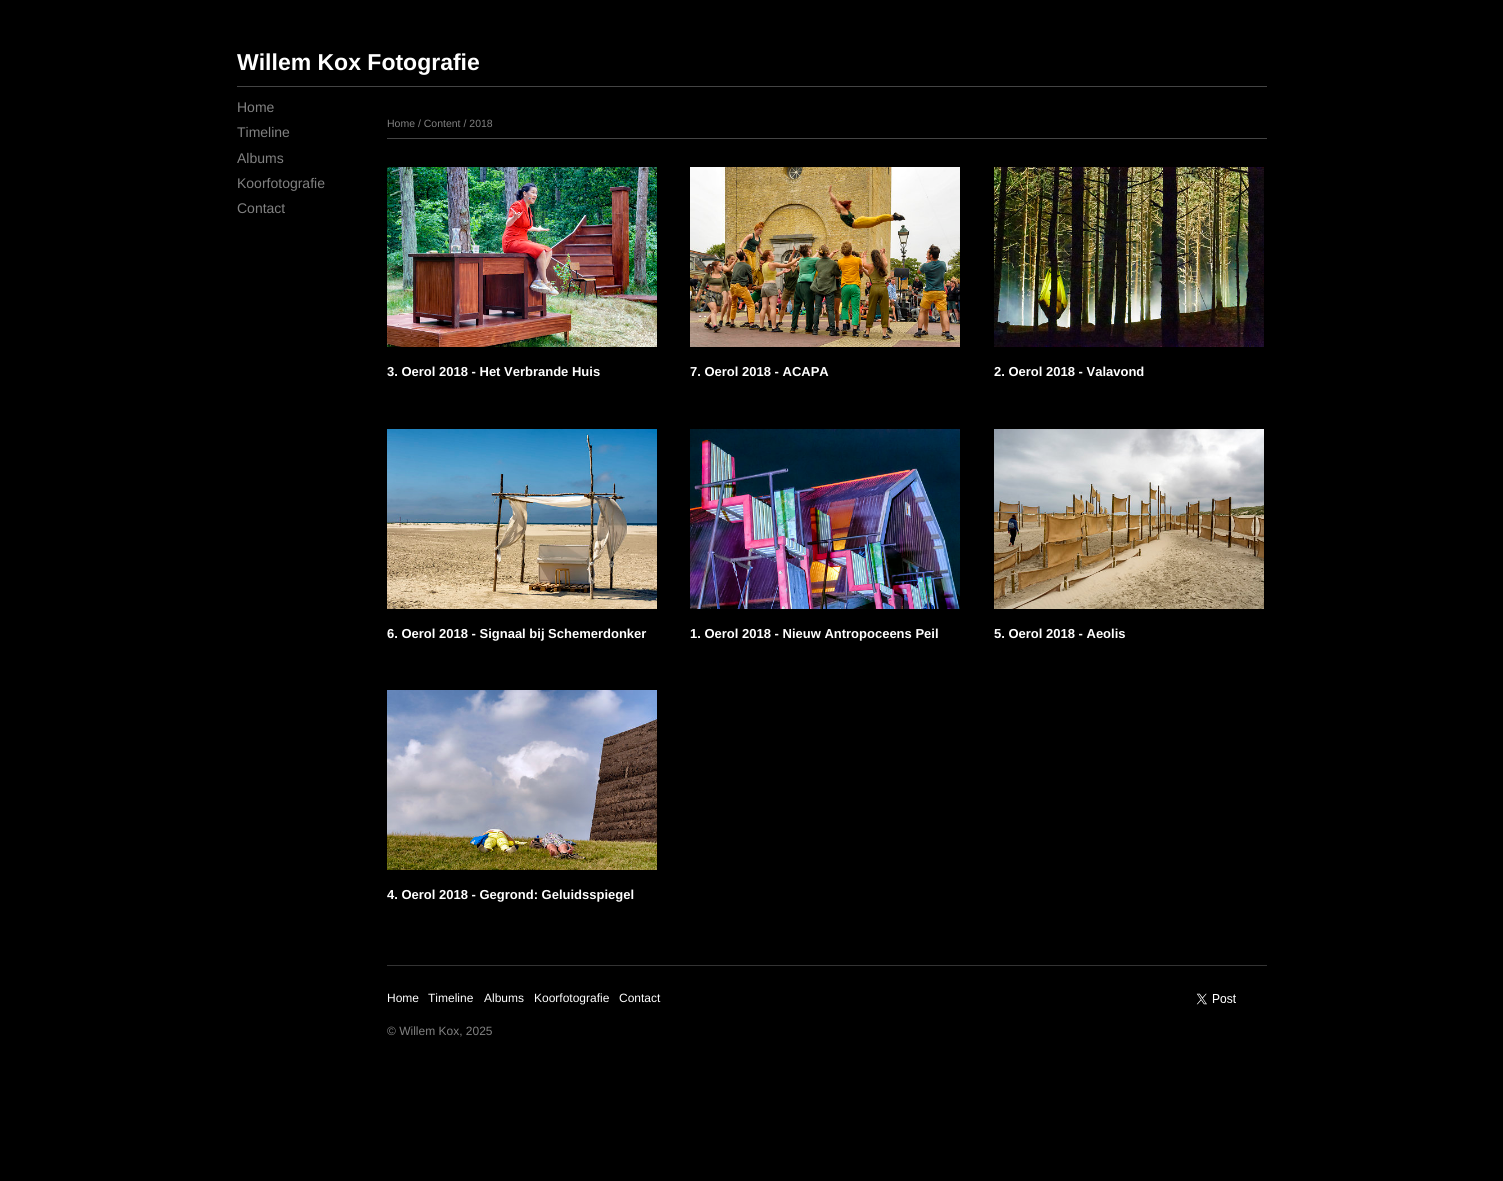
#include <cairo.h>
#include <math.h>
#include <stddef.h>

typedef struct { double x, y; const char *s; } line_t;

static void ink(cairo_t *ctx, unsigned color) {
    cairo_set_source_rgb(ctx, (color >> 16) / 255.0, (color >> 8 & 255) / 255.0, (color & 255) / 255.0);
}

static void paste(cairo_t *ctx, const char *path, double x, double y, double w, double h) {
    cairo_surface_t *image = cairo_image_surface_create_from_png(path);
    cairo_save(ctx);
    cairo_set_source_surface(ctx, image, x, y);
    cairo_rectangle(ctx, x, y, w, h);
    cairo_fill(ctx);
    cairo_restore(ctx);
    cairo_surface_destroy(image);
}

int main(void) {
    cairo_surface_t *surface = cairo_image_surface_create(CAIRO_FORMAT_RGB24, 1503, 1181);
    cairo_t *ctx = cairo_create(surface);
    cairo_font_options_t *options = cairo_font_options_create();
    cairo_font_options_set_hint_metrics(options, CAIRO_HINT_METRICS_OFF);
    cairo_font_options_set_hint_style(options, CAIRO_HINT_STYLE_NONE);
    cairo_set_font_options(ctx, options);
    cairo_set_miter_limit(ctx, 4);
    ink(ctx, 0x000000);
    cairo_paint(ctx);
    ink(ctx, 0x444444);
    cairo_rectangle(ctx, 237, 86, 1030, 1);
    cairo_fill(ctx);
    cairo_select_font_face(ctx, "Liberation Sans", CAIRO_FONT_SLANT_NORMAL, CAIRO_FONT_WEIGHT_BOLD);
    cairo_set_font_size(ctx, 23);
    ink(ctx, 0xFFFFFF);
    cairo_move_to(ctx, 237, 70);
    cairo_show_text(ctx, "Willem Kox Fotografie");
    cairo_select_font_face(ctx, "Liberation Sans", CAIRO_FONT_SLANT_NORMAL, CAIRO_FONT_WEIGHT_NORMAL);
    cairo_set_font_size(ctx, 14);
    ink(ctx, 0x818181);
    {
        static const line_t items[] = {
            {237, 112, "Home"},
            {237, 137, "Timeline"},
            {237, 163, "Albums"},
            {237, 188, "Koorfotografie"},
            {237, 213, "Contact"},
        };
        for (size_t i = 0; i < sizeof items / sizeof *items; i++) {
            cairo_move_to(ctx, items[i].x, items[i].y);
            cairo_show_text(ctx, items[i].s);
        }
    }
    ink(ctx, 0x444444);
    cairo_rectangle(ctx, 387, 138, 880, 1);
    cairo_fill(ctx);
    cairo_set_font_size(ctx, 10.5);
    ink(ctx, 0x818181);
    cairo_move_to(ctx, 387, 127);
    cairo_show_text(ctx, "Home / Content / 2018");
    paste(ctx, "media/1.png", 387, 167, 270, 180);
    cairo_select_font_face(ctx, "Liberation Sans", CAIRO_FONT_SLANT_NORMAL, CAIRO_FONT_WEIGHT_BOLD);
    cairo_set_font_size(ctx, 13);
    ink(ctx, 0xFFFFFF);
    cairo_move_to(ctx, 387, 376);
    cairo_show_text(ctx, "3. Oerol 2018 - Het Verbrande Huis");
    paste(ctx, "media/2.png", 690, 167, 270, 180);
    cairo_move_to(ctx, 690, 376);
    cairo_show_text(ctx, "7. Oerol 2018 - ACAPA");
    paste(ctx, "media/3.png", 994, 167, 270, 180);
    cairo_move_to(ctx, 994, 376);
    cairo_show_text(ctx, "2. Oerol 2018 - Valavond");
    paste(ctx, "media/4.png", 387, 429, 270, 180);
    cairo_move_to(ctx, 387, 638);
    cairo_show_text(ctx, "6. Oerol 2018 - Signaal bij Schemerdonker");
    paste(ctx, "media/5.png", 690, 429, 270, 180);
    cairo_move_to(ctx, 690, 638);
    cairo_show_text(ctx, "1. Oerol 2018 - Nieuw Antropoceens Peil");
    paste(ctx, "media/6.png", 994, 429, 270, 180);
    cairo_move_to(ctx, 994, 638);
    cairo_show_text(ctx, "5. Oerol 2018 - Aeolis");
    paste(ctx, "media/7.png", 387, 690, 270, 180);
    cairo_move_to(ctx, 387, 899);
    cairo_show_text(ctx, "4. Oerol 2018 - Gegrond: Geluidsspiegel");
    ink(ctx, 0x333333);
    cairo_rectangle(ctx, 387, 965, 880, 1);
    cairo_fill(ctx);
    cairo_select_font_face(ctx, "Liberation Sans", CAIRO_FONT_SLANT_NORMAL, CAIRO_FONT_WEIGHT_NORMAL);
    cairo_set_font_size(ctx, 12);
    ink(ctx, 0xFFFFFF);
    {
        static const line_t items[] = {
            {387, 1002, "Home"},
            {428, 1002, "Timeline"},
            {484, 1002, "Albums"},
            {534, 1002, "Koorfotografie"},
            {619, 1002, "Contact"},
        };
        for (size_t i = 0; i < sizeof items / sizeof *items; i++) {
            cairo_move_to(ctx, items[i].x, items[i].y);
            cairo_show_text(ctx, items[i].s);
        }
    }
    paste(ctx, "media/8.png", 1196, 993, 40, 12);
    ink(ctx, 0x818181);
    cairo_move_to(ctx, 387, 1035);
    cairo_show_text(ctx, "© Willem Kox, 2025");
    cairo_surface_write_to_png(surface, "image.png");
    cairo_font_options_destroy(options);
    cairo_destroy(ctx);
    cairo_surface_destroy(surface);
    return 0;
}
